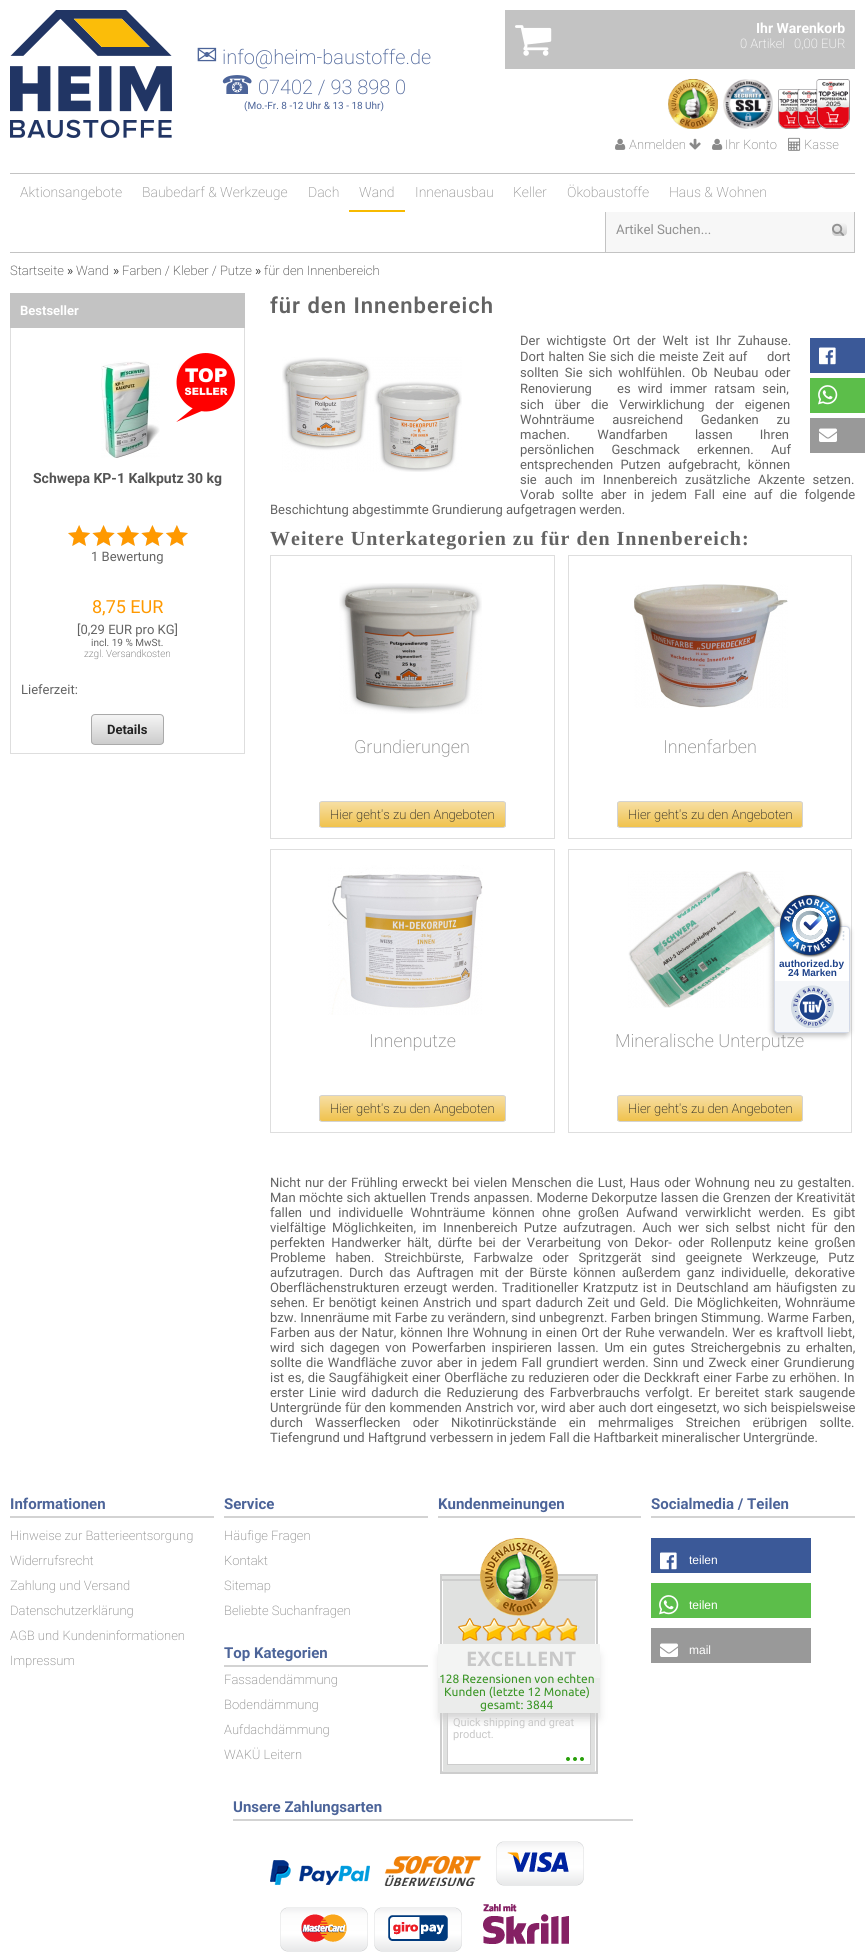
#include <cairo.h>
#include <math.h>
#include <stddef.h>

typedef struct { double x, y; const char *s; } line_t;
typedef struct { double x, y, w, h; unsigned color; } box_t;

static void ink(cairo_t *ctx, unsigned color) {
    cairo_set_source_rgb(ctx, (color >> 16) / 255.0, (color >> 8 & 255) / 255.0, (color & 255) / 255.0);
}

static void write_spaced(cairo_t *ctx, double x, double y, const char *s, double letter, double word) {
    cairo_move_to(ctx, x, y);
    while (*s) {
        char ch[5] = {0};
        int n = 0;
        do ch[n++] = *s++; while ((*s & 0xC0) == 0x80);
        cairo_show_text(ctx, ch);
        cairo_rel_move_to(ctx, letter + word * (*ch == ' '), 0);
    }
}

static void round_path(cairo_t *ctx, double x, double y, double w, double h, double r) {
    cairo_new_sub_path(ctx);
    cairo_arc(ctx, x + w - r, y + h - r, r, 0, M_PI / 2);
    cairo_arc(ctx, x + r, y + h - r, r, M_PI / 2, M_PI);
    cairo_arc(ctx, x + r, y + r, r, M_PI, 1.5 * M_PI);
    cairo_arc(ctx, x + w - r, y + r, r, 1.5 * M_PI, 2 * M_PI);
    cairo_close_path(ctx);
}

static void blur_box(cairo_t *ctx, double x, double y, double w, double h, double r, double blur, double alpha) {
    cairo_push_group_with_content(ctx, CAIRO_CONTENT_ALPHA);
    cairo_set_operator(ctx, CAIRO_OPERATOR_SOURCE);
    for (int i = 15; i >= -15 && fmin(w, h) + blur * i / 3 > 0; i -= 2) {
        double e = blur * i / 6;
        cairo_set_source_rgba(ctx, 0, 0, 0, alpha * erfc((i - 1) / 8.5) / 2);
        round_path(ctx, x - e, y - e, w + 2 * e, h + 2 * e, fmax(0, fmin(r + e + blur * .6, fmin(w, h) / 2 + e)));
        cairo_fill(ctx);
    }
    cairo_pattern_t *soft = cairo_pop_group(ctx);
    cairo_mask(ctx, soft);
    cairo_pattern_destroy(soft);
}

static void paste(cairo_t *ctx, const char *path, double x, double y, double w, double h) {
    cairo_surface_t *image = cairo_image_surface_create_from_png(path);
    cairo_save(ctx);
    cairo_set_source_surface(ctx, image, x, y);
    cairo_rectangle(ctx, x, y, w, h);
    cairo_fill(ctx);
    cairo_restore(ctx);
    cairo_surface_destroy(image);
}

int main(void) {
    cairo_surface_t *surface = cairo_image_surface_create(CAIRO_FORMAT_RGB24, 865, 1959);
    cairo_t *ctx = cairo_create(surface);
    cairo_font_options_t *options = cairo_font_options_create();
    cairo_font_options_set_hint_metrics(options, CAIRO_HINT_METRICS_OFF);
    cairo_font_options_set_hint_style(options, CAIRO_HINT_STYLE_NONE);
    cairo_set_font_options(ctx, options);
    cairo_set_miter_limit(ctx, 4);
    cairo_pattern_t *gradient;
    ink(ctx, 0xFFFFFF);
    cairo_paint(ctx);
    paste(ctx, "media/1.png", 10, 10, 162, 128);
    cairo_select_font_face(ctx, "DejaVu Sans", CAIRO_FONT_SLANT_NORMAL, CAIRO_FONT_WEIGHT_NORMAL);
    cairo_set_font_size(ctx, 26);
    ink(ctx, 0x4C6499);
    cairo_move_to(ctx, 196, 64);
    cairo_show_text(ctx, "✉");
    cairo_select_font_face(ctx, "Roboto ExtraLight", CAIRO_FONT_SLANT_NORMAL, CAIRO_FONT_WEIGHT_NORMAL);
    cairo_set_font_size(ctx, 20);
    cairo_move_to(ctx, 222, 64);
    cairo_show_text(ctx, "info@heim-baustoffe.de");
    cairo_select_font_face(ctx, "DejaVu Sans", CAIRO_FONT_SLANT_NORMAL, CAIRO_FONT_WEIGHT_NORMAL);
    cairo_set_font_size(ctx, 26);
    cairo_move_to(ctx, 221, 94);
    cairo_show_text(ctx, "☎");
    cairo_select_font_face(ctx, "Roboto ExtraLight", CAIRO_FONT_SLANT_NORMAL, CAIRO_FONT_WEIGHT_NORMAL);
    cairo_set_font_size(ctx, 20);
    cairo_move_to(ctx, 258, 94);
    cairo_show_text(ctx, "07402 / 93 898 0");
    ink(ctx, 0xC3C3C3);
    cairo_rectangle(ctx, 505, 10, 350, 59);
    cairo_fill(ctx);
    paste(ctx, "media/2.png", 515, 25, 37, 31);
    cairo_select_font_face(ctx, "Roboto", CAIRO_FONT_SLANT_NORMAL, CAIRO_FONT_WEIGHT_BOLD);
    cairo_set_font_size(ctx, 14);
    ink(ctx, 0xFFFFFF);
    cairo_move_to(ctx, 756, 33);
    cairo_show_text(ctx, "Ihr Warenkorb");
    cairo_select_font_face(ctx, "Roboto ExtraLight", CAIRO_FONT_SLANT_NORMAL, CAIRO_FONT_WEIGHT_NORMAL);
    cairo_set_font_size(ctx, 13);
    cairo_move_to(ctx, 740, 48);
    cairo_show_text(ctx, "0 Artikel");
    cairo_move_to(ctx, 794, 48);
    cairo_show_text(ctx, "0,00 EUR");
    paste(ctx, "media/3.png", 668, 79, 50, 50);
    paste(ctx, "media/4.png", 723, 79, 50, 50);
    paste(ctx, "media/5.png", 778, 79, 72, 50);
    paste(ctx, "media/6.png", 615, 138, 11, 12);
    ink(ctx, 0x898989);
    cairo_move_to(ctx, 629, 149);
    cairo_show_text(ctx, "Anmelden");
    paste(ctx, "media/7.png", 689, 138, 12, 12);
    paste(ctx, "media/6.png", 712, 138, 11, 12);
    cairo_move_to(ctx, 725, 149);
    cairo_show_text(ctx, "Ihr Konto");
    paste(ctx, "media/8.png", 788, 137, 13, 14);
    cairo_move_to(ctx, 804, 149);
    cairo_show_text(ctx, "Kasse");
    cairo_select_font_face(ctx, "Roboto", CAIRO_FONT_SLANT_NORMAL, CAIRO_FONT_WEIGHT_NORMAL);
    cairo_set_font_size(ctx, 10);
    ink(ctx, 0x4C6499);
    cairo_move_to(ctx, 244, 109);
    cairo_show_text(ctx, "(Mo.-Fr. 8 -12 Uhr & 13 - 18 Uhr)");
    ink(ctx, 0xC3C3C3);
    cairo_rectangle(ctx, 10, 173, 845, 1);
    cairo_fill(ctx);
    cairo_rectangle(ctx, 10, 252, 845, 1);
    cairo_fill(ctx);
    cairo_select_font_face(ctx, "Roboto ExtraLight", CAIRO_FONT_SLANT_NORMAL, CAIRO_FONT_WEIGHT_NORMAL);
    cairo_set_font_size(ctx, 14);
    ink(ctx, 0x919191);
    {
        static const line_t items[] = {
            {20, 197, "Aktionsangebote"},
            {142, 197, "Baubedarf & Werkzeuge"},
            {308, 197, "Dach"},
        };
        for (size_t i = 0; i < sizeof items / sizeof *items; i++) {
            cairo_move_to(ctx, items[i].x, items[i].y);
            cairo_show_text(ctx, items[i].s);
        }
    }
    ink(ctx, 0xF7BA00);
    cairo_rectangle(ctx, 349, 210, 56, 2);
    cairo_fill(ctx);
    ink(ctx, 0x919191);
    {
        static const line_t items[] = {
            {359, 197, "Wand"},
            {415, 197, "Innenausbau"},
            {513, 197, "Keller"},
            {567, 197, "Ökobaustoffe"},
            {669, 197, "Haus & Wohnen"},
        };
        for (size_t i = 0; i < sizeof items / sizeof *items; i++) {
            cairo_move_to(ctx, items[i].x, items[i].y);
            cairo_show_text(ctx, items[i].s);
        }
    }
    {
        static const box_t items[] = {
            {606, 212, 248, 40, 0xF7F7F7},
            {854, 212, 1, 40, 0xC3C3C3},
            {605, 212, 1, 40, 0xC3C3C3},
        };
        for (size_t i = 0; i < sizeof items / sizeof *items; i++) {
            ink(ctx, items[i].color);
            cairo_rectangle(ctx, items[i].x, items[i].y, items[i].w, items[i].h);
            cairo_fill(ctx);
        }
    }
    cairo_select_font_face(ctx, "Roboto", CAIRO_FONT_SLANT_NORMAL, CAIRO_FONT_WEIGHT_NORMAL);
    cairo_set_font_size(ctx, 13.25);
    ink(ctx, 0x919191);
    cairo_move_to(ctx, 616, 234);
    cairo_show_text(ctx, "Artikel Suchen...");
    gradient = cairo_pattern_create_linear(832, 223, 832, 236);
    cairo_pattern_add_color_stop_rgba(gradient, 0.05, 0.953, 0.953, 0.953, 1);
    cairo_pattern_add_color_stop_rgba(gradient, 1, 0.8, 0.8, 0.8, 1);
    cairo_set_source(ctx, gradient);
    cairo_pattern_destroy(gradient);
    round_path(ctx, 832, 223, 15, 13, 4);
    cairo_fill(ctx);
    paste(ctx, "media/9.png", 832, 223, 12, 13);
    cairo_select_font_face(ctx, "Roboto ExtraLight", CAIRO_FONT_SLANT_NORMAL, CAIRO_FONT_WEIGHT_NORMAL);
    cairo_set_font_size(ctx, 13);
    ink(ctx, 0x454545);
    cairo_move_to(ctx, 10, 275);
    cairo_show_text(ctx, "Startseite");
    cairo_select_font_face(ctx, "Roboto", CAIRO_FONT_SLANT_NORMAL, CAIRO_FONT_WEIGHT_NORMAL);
    cairo_move_to(ctx, 67, 275);
    cairo_show_text(ctx, "»");
    cairo_select_font_face(ctx, "Roboto ExtraLight", CAIRO_FONT_SLANT_NORMAL, CAIRO_FONT_WEIGHT_NORMAL);
    cairo_move_to(ctx, 76, 275);
    cairo_show_text(ctx, "Wand");
    cairo_select_font_face(ctx, "Roboto", CAIRO_FONT_SLANT_NORMAL, CAIRO_FONT_WEIGHT_NORMAL);
    cairo_move_to(ctx, 113, 275);
    cairo_show_text(ctx, "»");
    cairo_select_font_face(ctx, "Roboto ExtraLight", CAIRO_FONT_SLANT_NORMAL, CAIRO_FONT_WEIGHT_NORMAL);
    cairo_move_to(ctx, 122, 275);
    cairo_show_text(ctx, "Farben / Kleber / Putze");
    cairo_select_font_face(ctx, "Roboto", CAIRO_FONT_SLANT_NORMAL, CAIRO_FONT_WEIGHT_NORMAL);
    cairo_move_to(ctx, 255, 275);
    cairo_show_text(ctx, "»");
    cairo_select_font_face(ctx, "Roboto ExtraLight", CAIRO_FONT_SLANT_NORMAL, CAIRO_FONT_WEIGHT_NORMAL);
    cairo_move_to(ctx, 264, 275);
    cairo_show_text(ctx, "für den Innenbereich");
    ink(ctx, 0xC3C3C3);
    cairo_rectangle(ctx, 10, 293, 235, 35);
    cairo_fill(ctx);
    cairo_select_font_face(ctx, "Roboto", CAIRO_FONT_SLANT_NORMAL, CAIRO_FONT_WEIGHT_BOLD);
    ink(ctx, 0xFFFFFF);
    cairo_move_to(ctx, 20, 315);
    cairo_show_text(ctx, "Bestseller");
    {
        static const box_t items[] = {
            {244, 328, 1, 426, 0xDEDEDE},
            {10, 753, 235, 1, 0xDEDEDE},
            {10, 328, 1, 426, 0xDEDEDE},
        };
        for (size_t i = 0; i < sizeof items / sizeof *items; i++) {
            ink(ctx, items[i].color);
            cairo_rectangle(ctx, items[i].x, items[i].y, items[i].w, items[i].h);
            cairo_fill(ctx);
        }
    }
    paste(ctx, "media/10.png", 101, 361, 59, 97);
    paste(ctx, "media/11.png", 176, 353, 59, 69);
    cairo_set_font_size(ctx, 14);
    ink(ctx, 0x545454);
    cairo_move_to(ctx, 33, 483);
    cairo_show_text(ctx, "Schwepa KP-1 Kalkputz 30 kg");
    paste(ctx, "media/12.png", 68, 525, 120, 21);
    paste(ctx, "media/13.png", 68, 525, 120, 21);
    cairo_select_font_face(ctx, "Roboto", CAIRO_FONT_SLANT_NORMAL, CAIRO_FONT_WEIGHT_NORMAL);
    cairo_set_font_size(ctx, 13);
    ink(ctx, 0x636363);
    cairo_move_to(ctx, 91, 561);
    cairo_show_text(ctx, "1 Bewertung");
    cairo_set_font_size(ctx, 18);
    ink(ctx, 0xFF9900);
    cairo_move_to(ctx, 92, 613);
    cairo_show_text(ctx, "8,75 EUR");
    cairo_set_font_size(ctx, 13);
    ink(ctx, 0x636363);
    cairo_move_to(ctx, 77, 634);
    cairo_show_text(ctx, "[0,29 EUR pro KG]");
    cairo_set_font_size(ctx, 10);
    cairo_move_to(ctx, 91, 646);
    cairo_show_text(ctx, "incl. 19 % MwSt.");
    cairo_select_font_face(ctx, "Roboto ExtraLight", CAIRO_FONT_SLANT_NORMAL, CAIRO_FONT_WEIGHT_NORMAL);
    cairo_move_to(ctx, 84, 657);
    cairo_show_text(ctx, "zzgl. Versandkosten");
    cairo_select_font_face(ctx, "Roboto", CAIRO_FONT_SLANT_NORMAL, CAIRO_FONT_WEIGHT_NORMAL);
    cairo_set_font_size(ctx, 13);
    cairo_move_to(ctx, 21, 694);
    cairo_show_text(ctx, "Lieferzeit:");
    cairo_save(ctx);
    round_path(ctx, 91, 714, 73, 31, 4);
    cairo_clip(ctx);
    gradient = cairo_pattern_create_linear(92, 715, 92, 744);
    cairo_pattern_add_color_stop_rgba(gradient, 0.05, 0.953, 0.953, 0.953, 1);
    cairo_pattern_add_color_stop_rgba(gradient, 1, 0.8, 0.8, 0.8, 1);
    cairo_set_source(ctx, gradient);
    cairo_pattern_destroy(gradient);
    cairo_rectangle(ctx, 91, 715, 73, 29);
    cairo_fill(ctx);
    cairo_restore(ctx);
    round_path(ctx, 91.5, 714.5, 72, 30, 3.5);
    ink(ctx, 0xAAAAAA);
    cairo_set_line_width(ctx, 1);
    cairo_stroke(ctx);
    cairo_select_font_face(ctx, "Roboto", CAIRO_FONT_SLANT_NORMAL, CAIRO_FONT_WEIGHT_BOLD);
    ink(ctx, 0x222222);
    cairo_move_to(ctx, 107, 734);
    cairo_show_text(ctx, "Details");
    cairo_select_font_face(ctx, "Roboto SemiBold", CAIRO_FONT_SLANT_NORMAL, CAIRO_FONT_WEIGHT_NORMAL);
    cairo_set_font_size(ctx, 22);
    ink(ctx, 0x636363);
    write_spaced(ctx, 270, 313, "für den Innenbereich", 1, 0);
    cairo_select_font_face(ctx, "Roboto", CAIRO_FONT_SLANT_NORMAL, CAIRO_FONT_WEIGHT_NORMAL);
    cairo_set_font_size(ctx, 13);
    write_spaced(ctx, 520, 345, "Der wichtigste Ort der Welt ist Ihr Zuhause.", 0, 3.5);
    write_spaced(ctx, 520, 361, "Dort halten Sie sich die meiste Zeit auf", 0, 0.75);
    cairo_move_to(ctx, 767, 361);
    cairo_show_text(ctx, "dort");
    write_spaced(ctx, 520, 377, "sollten Sie sich wohlfühlen. Ob Neubau oder", 0, 2.75);
    cairo_move_to(ctx, 520, 393);
    cairo_show_text(ctx, "Renovierung");
    write_spaced(ctx, 617, 393, "es wird immer ratsam sein,", 0, 4);
    write_spaced(ctx, 520, 409, "sich über die Verwirklichung der eigenen", 0, 7.5);
    write_spaced(ctx, 520, 424, "Wohnträume ausreichend Gedanken zu", 0, 14.5);
    write_spaced(ctx, 520, 439, "machen. Wandfarben lassen Ihren", 0, 24);
    write_spaced(ctx, 520, 454, "persönlichen Geschmack erkennen. Auf", 0, 14);
    write_spaced(ctx, 520, 469, "entsprechenden Putzen aufgebracht, können", 0, 4.1);
    write_spaced(ctx, 520, 484, "sie auch im Innenbereich zusätzliche Akzente setzen.", 0, 4.5);
    write_spaced(ctx, 520, 499, "Vorab sollte aber in jedem Fall eine auf die folgende", 0, 4.1);
    cairo_move_to(ctx, 270, 514);
    cairo_show_text(ctx, "Beschichtung abgestimmte Grundierung aufgetragen werden.");
    paste(ctx, "media/14.png", 282, 357, 180, 115);
    ink(ctx, 0x3B5998);
    cairo_rectangle(ctx, 810, 338, 55, 35);
    cairo_fill(ctx);
    paste(ctx, "media/15.png", 819, 347, 17, 18);
    ink(ctx, 0x5CBE4A);
    cairo_rectangle(ctx, 810, 378, 55, 35);
    cairo_fill(ctx);
    paste(ctx, "media/16.png", 818, 385, 20, 20);
    ink(ctx, 0x999999);
    cairo_rectangle(ctx, 810, 418, 55, 35);
    cairo_fill(ctx);
    paste(ctx, "media/17.png", 819, 428, 18, 14);
    cairo_select_font_face(ctx, "Liberation Serif", CAIRO_FONT_SLANT_NORMAL, CAIRO_FONT_WEIGHT_BOLD);
    cairo_set_font_size(ctx, 20);
    ink(ctx, 0x636363);
    write_spaced(ctx, 270, 545, "Weitere Unterkategorien zu für den Innenbereich:", 1, 0);
    cairo_rectangle(ctx, 270.5, 555.5, 284, 283);
    ink(ctx, 0xDEDEDE);
    cairo_stroke(ctx);
    paste(ctx, "media/18.png", 339, 583, 143, 131);
    cairo_select_font_face(ctx, "Roboto ExtraLight", CAIRO_FONT_SLANT_NORMAL, CAIRO_FONT_WEIGHT_NORMAL);
    cairo_set_font_size(ctx, 18);
    ink(ctx, 0x898989);
    cairo_move_to(ctx, 354, 753);
    cairo_show_text(ctx, "Grundierungen");
    cairo_save(ctx);
    round_path(ctx, 319, 801, 187, 27, 3);
    cairo_clip(ctx);
    gradient = cairo_pattern_create_linear(320, 802, 320, 827);
    cairo_pattern_add_color_stop_rgba(gradient, 0.05, 0.965, 0.867, 0.624, 1);
    cairo_pattern_add_color_stop_rgba(gradient, 1, 0.941, 0.761, 0.302, 1);
    cairo_set_source(ctx, gradient);
    cairo_pattern_destroy(gradient);
    cairo_rectangle(ctx, 319, 802, 187, 25);
    cairo_fill(ctx);
    cairo_restore(ctx);
    round_path(ctx, 319.5, 801.5, 186, 26, 2.5);
    ink(ctx, 0xD3D3D3);
    cairo_stroke(ctx);
    cairo_set_font_size(ctx, 13);
    ink(ctx, 0x222222);
    cairo_move_to(ctx, 330, 819);
    cairo_show_text(ctx, "Hier geht's zu den Angeboten");
    cairo_rectangle(ctx, 568.5, 555.5, 283, 283);
    ink(ctx, 0xDEDEDE);
    cairo_stroke(ctx);
    paste(ctx, "media/19.png", 634, 584, 154, 124);
    cairo_set_font_size(ctx, 18);
    ink(ctx, 0x898989);
    cairo_move_to(ctx, 663, 753);
    cairo_show_text(ctx, "Innenfarben");
    cairo_save(ctx);
    round_path(ctx, 617, 801, 186, 27, 3);
    cairo_clip(ctx);
    gradient = cairo_pattern_create_linear(618, 802, 618, 827);
    cairo_pattern_add_color_stop_rgba(gradient, 0.05, 0.965, 0.867, 0.624, 1);
    cairo_pattern_add_color_stop_rgba(gradient, 1, 0.941, 0.761, 0.302, 1);
    cairo_set_source(ctx, gradient);
    cairo_pattern_destroy(gradient);
    cairo_rectangle(ctx, 617, 802, 186, 25);
    cairo_fill(ctx);
    cairo_restore(ctx);
    round_path(ctx, 617.5, 801.5, 185, 26, 2.5);
    ink(ctx, 0xD3D3D3);
    cairo_stroke(ctx);
    cairo_set_font_size(ctx, 13);
    ink(ctx, 0x222222);
    cairo_move_to(ctx, 628, 819);
    cairo_show_text(ctx, "Hier geht's zu den Angeboten");
    cairo_rectangle(ctx, 270.5, 849.5, 284, 283);
    ink(ctx, 0xDEDEDE);
    cairo_stroke(ctx);
    paste(ctx, "media/20.png", 328, 865, 155, 150);
    cairo_set_font_size(ctx, 18);
    ink(ctx, 0x898989);
    cairo_move_to(ctx, 369, 1047);
    cairo_show_text(ctx, "Innenputze");
    cairo_save(ctx);
    round_path(ctx, 319, 1095, 187, 27, 3);
    cairo_clip(ctx);
    gradient = cairo_pattern_create_linear(320, 1096, 320, 1121);
    cairo_pattern_add_color_stop_rgba(gradient, 0.05, 0.965, 0.867, 0.624, 1);
    cairo_pattern_add_color_stop_rgba(gradient, 1, 0.941, 0.761, 0.302, 1);
    cairo_set_source(ctx, gradient);
    cairo_pattern_destroy(gradient);
    cairo_rectangle(ctx, 319, 1096, 187, 25);
    cairo_fill(ctx);
    cairo_restore(ctx);
    round_path(ctx, 319.5, 1095.5, 186, 26, 2.5);
    ink(ctx, 0xD3D3D3);
    cairo_stroke(ctx);
    cairo_set_font_size(ctx, 13);
    ink(ctx, 0x222222);
    cairo_move_to(ctx, 330, 1113);
    cairo_show_text(ctx, "Hier geht's zu den Angeboten");
    cairo_rectangle(ctx, 568.5, 849.5, 283, 283);
    ink(ctx, 0xDEDEDE);
    cairo_stroke(ctx);
    paste(ctx, "media/21.png", 628, 871, 157, 137);
    cairo_set_font_size(ctx, 18);
    ink(ctx, 0x898989);
    cairo_move_to(ctx, 615, 1047);
    cairo_show_text(ctx, "Mineralische Unterputze");
    cairo_save(ctx);
    round_path(ctx, 617, 1095, 186, 27, 3);
    cairo_clip(ctx);
    gradient = cairo_pattern_create_linear(618, 1096, 618, 1121);
    cairo_pattern_add_color_stop_rgba(gradient, 0.05, 0.965, 0.867, 0.624, 1);
    cairo_pattern_add_color_stop_rgba(gradient, 1, 0.941, 0.761, 0.302, 1);
    cairo_set_source(ctx, gradient);
    cairo_pattern_destroy(gradient);
    cairo_rectangle(ctx, 617, 1096, 186, 25);
    cairo_fill(ctx);
    cairo_restore(ctx);
    round_path(ctx, 617.5, 1095.5, 185, 26, 2.5);
    ink(ctx, 0xD3D3D3);
    cairo_stroke(ctx);
    cairo_set_font_size(ctx, 13);
    ink(ctx, 0x222222);
    cairo_move_to(ctx, 628, 1113);
    cairo_show_text(ctx, "Hier geht's zu den Angeboten");
    cairo_select_font_face(ctx, "Roboto", CAIRO_FONT_SLANT_NORMAL, CAIRO_FONT_WEIGHT_NORMAL);
    ink(ctx, 0x636363);
    write_spaced(ctx, 270, 1187, "Nicht nur der Frühling erweckt bei vielen Menschen die Lust, Haus oder Wohnung neu zu gestalten.", 0, 1.1);
    write_spaced(ctx, 270, 1202, "Man möchte sich aktuellen Trends anpassen. Moderne Dekorputze lassen die Grenzen der Kreativität", 0, 0.25);
    write_spaced(ctx, 270, 1217, "fallen und individuelle Wohnträume können ohne großen Aufwand verwirklicht werden. Es gibt", 0, 4.1);
    write_spaced(ctx, 270, 1232, "vielfältige Möglichkeiten, im Innenbereich Putze aufzutragen. Auch wer sich selbst nicht für den", 0, 3);
    write_spaced(ctx, 270, 1247, "perfekten Handwerker hält, dürfte bei der Verarbeitung von Dekor- oder Rollenputz keine großen", 0, 3);
    write_spaced(ctx, 270, 1262, "Probleme haben. Streichbürste, Farbwalze oder Spritzgerät sind geeignete Werkzeuge, Putz", 0, 6.5);
    write_spaced(ctx, 270, 1277, "aufzutragen. Durch das Auftragen mit der Bürste können außerdem ganz individuelle, dekorative", 0, 2.9);
    write_spaced(ctx, 270, 1292, "Oberflächenstrukturen erzeugt werden. Traditioneller Kratzputz ist in Deutschland am häufigsten zu", 0, 1.25);
    write_spaced(ctx, 270, 1307, "sehen. Er benötigt keinen Anstrich und spart dadurch Zeit und Geld.", 0, 1.1);
    write_spaced(ctx, 674, 1307, "Die Möglichkeiten, Wohnräume", 0, 1);
    write_spaced(ctx, 270, 1322, "bzw. Innenräume mit Farbe zu verändern, sind unbegrenzt. Farben bringen Stimmung. Warme Farben,", 0, 0.1);
    write_spaced(ctx, 270, 1337, "Farben aus der Natur, können Ihre Wohnung in einen Ort der Ruhe verwandeln. Wer es kraftvoll liebt,", 0, 0.75);
    write_spaced(ctx, 270, 1352, "wird sich dagegen von Powerfarben inspirieren lassen. Um ein gutes Streichergebnis zu erhalten,", 0, 2.4);
    write_spaced(ctx, 270, 1367, "sollte die Wandfläche zuvor aber in jedem Fall grundiert werden. Sinn und Zweck einer Grundierung", 0, 1.1);
    write_spaced(ctx, 270, 1382, "ist es, die Saugfähigkeit einer Oberfläche zu reduzieren oder die Deckkraft einer Farbe zu erhöhen. In", 0, 0.5);
    write_spaced(ctx, 270, 1397, "erster Linie wird dadurch die Reduzierung des Farbverbrauchs verfolgt. Er bereitet stark saugende", 0, 2);
    write_spaced(ctx, 270, 1412, "Untergründe für den kommenden Anstrich vor, wird aber auch dort eingesetzt, wo sich beispielsweise", 0, 0.25);
    write_spaced(ctx, 270, 1427, "durch Wasserflecken oder Nikotinrückstände ein mehrmaliges Streichen erübrigen sollte.", 0, 9);
    cairo_move_to(ctx, 270, 1442);
    cairo_show_text(ctx, "Tiefengrund und Haftgrund verbessern in jedem Fall die Haftbarkeit mineralischer Untergründe.");
    ink(ctx, 0x000000);
    blur_box(ctx, 773, 928, 76, 107, 4, 3, 0.3);
    ink(ctx, 0xFFFFFF);
    round_path(ctx, 774.5, 926.5, 75, 106, 3.5);
    cairo_fill_preserve(ctx);
    ink(ctx, 0xD2D9E8);
    cairo_stroke(ctx);
    ink(ctx, 0x000000);
    blur_box(ctx, 781, 896, 60, 60, 30, 1, 0.7);
    ink(ctx, 0x444444);
    cairo_arc(ctx, 810, 925, 30, 0, 2 * M_PI);
    cairo_fill(ctx);
    paste(ctx, "media/22.png", 780, 895, 60, 60);
    paste(ctx, "media/23.png", 842, 931, 3, 10);
    cairo_select_font_face(ctx, "Liberation Sans", CAIRO_FONT_SLANT_NORMAL, CAIRO_FONT_WEIGHT_BOLD);
    cairo_set_font_size(ctx, 10);
    ink(ctx, 0x1D428A);
    cairo_move_to(ctx, 779, 967);
    cairo_show_text(ctx, "authorized.by");
    cairo_move_to(ctx, 788, 976);
    cairo_show_text(ctx, "24 Marken");
    ink(ctx, 0xF4F6F9);
    cairo_new_path(ctx);
    cairo_move_to(ctx, 775, 981);
    cairo_line_to(ctx, 849, 981);
    cairo_line_to(ctx, 849, 1032);
    cairo_line_to(ctx, 779, 1032);
    cairo_curve_to(ctx, 777, 1032, 775, 1030, 775, 1028);
    cairo_close_path(ctx);
    cairo_fill(ctx);
    paste(ctx, "media/24.png", 791, 985, 43, 43);
    ink(ctx, 0xD3D3D3);
    cairo_rectangle(ctx, 10, 1516, 204, 2);
    cairo_fill(ctx);
    cairo_select_font_face(ctx, "Roboto", CAIRO_FONT_SLANT_NORMAL, CAIRO_FONT_WEIGHT_BOLD);
    cairo_set_font_size(ctx, 15);
    ink(ctx, 0x4C6499);
    cairo_move_to(ctx, 10, 1509);
    cairo_show_text(ctx, "Informationen");
    cairo_select_font_face(ctx, "Roboto ExtraLight", CAIRO_FONT_SLANT_NORMAL, CAIRO_FONT_WEIGHT_NORMAL);
    cairo_set_font_size(ctx, 13);
    ink(ctx, 0x898989);
    {
        static const line_t items[] = {
            {10, 1540, "Hinweise zur Batterieentsorgung"},
            {10, 1565, "Widerrufsrecht"},
            {10, 1590, "Zahlung und Versand"},
            {10, 1615, "Datenschutzerklärung"},
            {10, 1640, "AGB und Kundeninformationen"},
            {10, 1665, "Impressum"},
        };
        for (size_t i = 0; i < sizeof items / sizeof *items; i++) {
            cairo_move_to(ctx, items[i].x, items[i].y);
            cairo_show_text(ctx, items[i].s);
        }
    }
    ink(ctx, 0xD3D3D3);
    cairo_rectangle(ctx, 224, 1516, 204, 2);
    cairo_fill(ctx);
    cairo_select_font_face(ctx, "Roboto", CAIRO_FONT_SLANT_NORMAL, CAIRO_FONT_WEIGHT_BOLD);
    cairo_set_font_size(ctx, 15);
    ink(ctx, 0x4C6499);
    cairo_move_to(ctx, 224, 1509);
    cairo_show_text(ctx, "Service");
    cairo_select_font_face(ctx, "Roboto ExtraLight", CAIRO_FONT_SLANT_NORMAL, CAIRO_FONT_WEIGHT_NORMAL);
    cairo_set_font_size(ctx, 13);
    ink(ctx, 0x898989);
    {
        static const line_t items[] = {
            {224, 1540, "Häufige Fragen"},
            {224, 1565, "Kontakt"},
            {224, 1590, "Sitemap"},
            {224, 1615, "Beliebte Suchanfragen"},
        };
        for (size_t i = 0; i < sizeof items / sizeof *items; i++) {
            cairo_move_to(ctx, items[i].x, items[i].y);
            cairo_show_text(ctx, items[i].s);
        }
    }
    ink(ctx, 0xD3D3D3);
    cairo_rectangle(ctx, 224, 1665, 204, 2);
    cairo_fill(ctx);
    cairo_select_font_face(ctx, "Roboto", CAIRO_FONT_SLANT_NORMAL, CAIRO_FONT_WEIGHT_BOLD);
    cairo_set_font_size(ctx, 15);
    ink(ctx, 0x4C6499);
    cairo_move_to(ctx, 224, 1658);
    cairo_show_text(ctx, "Top Kategorien");
    cairo_select_font_face(ctx, "Roboto ExtraLight", CAIRO_FONT_SLANT_NORMAL, CAIRO_FONT_WEIGHT_NORMAL);
    cairo_set_font_size(ctx, 13);
    ink(ctx, 0x898989);
    {
        static const line_t items[] = {
            {224, 1684, "Fassadendämmung"},
            {224, 1709, "Bodendämmung"},
            {224, 1734, "Aufdachdämmung"},
            {224, 1759, "WAKÜ Leitern"},
        };
        for (size_t i = 0; i < sizeof items / sizeof *items; i++) {
            cairo_move_to(ctx, items[i].x, items[i].y);
            cairo_show_text(ctx, items[i].s);
        }
    }
    ink(ctx, 0xD3D3D3);
    cairo_rectangle(ctx, 438, 1516, 203, 2);
    cairo_fill(ctx);
    cairo_select_font_face(ctx, "Roboto", CAIRO_FONT_SLANT_NORMAL, CAIRO_FONT_WEIGHT_BOLD);
    cairo_set_font_size(ctx, 15);
    ink(ctx, 0x4C6499);
    cairo_move_to(ctx, 438, 1509);
    cairo_show_text(ctx, "Kundenmeinungen");
    ink(ctx, 0xE0E1E0);
    cairo_rectangle(ctx, 441, 1575, 156, 198);
    cairo_fill_preserve(ctx);
    ink(ctx, 0xCDCDCD);
    cairo_set_line_width(ctx, 2);
    cairo_stroke(ctx);
    cairo_rectangle(ctx, 442, 1579, 154, 2);
    cairo_fill(ctx);
    paste(ctx, "media/25.png", 480, 1538, 78, 78);
    ink(ctx, 0xFFFFFF);
    cairo_rectangle(ctx, 595, 1581, 1, 190);
    cairo_fill(ctx);
    cairo_rectangle(ctx, 442, 1581, 1, 190);
    cairo_fill(ctx);
    paste(ctx, "media/26.png", 458, 1618, 122, 23);
    paste(ctx, "media/27.png", 458, 1618, 119, 23);
    {
        static const box_t items[] = {
            {448, 1713, 142, 51, 0xFFFFFF},
            {590, 1712, 1, 53, 0xCDCDCD},
            {447, 1764, 144, 1, 0xCDCDCD},
            {447, 1712, 1, 53, 0xCDCDCD},
        };
        for (size_t i = 0; i < sizeof items / sizeof *items; i++) {
            ink(ctx, items[i].color);
            cairo_rectangle(ctx, items[i].x, items[i].y, items[i].w, items[i].h);
            cairo_fill(ctx);
        }
    }
    ink(ctx, 0xCDCDCD);
    blur_box(ctx, 441, 1655, 156, 63, 0, 5, 1);
    ink(ctx, 0xF3F4F3);
    cairo_rectangle(ctx, 438, 1644, 162, 34);
    cairo_fill(ctx);
    cairo_select_font_face(ctx, "Open Sans", CAIRO_FONT_SLANT_NORMAL, CAIRO_FONT_WEIGHT_BOLD);
    cairo_set_font_size(ctx, 20);
    ink(ctx, 0xC8C8C8);
    cairo_move_to(ctx, 466, 1666);
    cairo_show_text(ctx, "EXCELLENT");
    ink(ctx, 0xEBECEB);
    cairo_rectangle(ctx, 438, 1678, 162, 35);
    cairo_fill(ctx);
    cairo_select_font_face(ctx, "Ubuntu", CAIRO_FONT_SLANT_NORMAL, CAIRO_FONT_WEIGHT_NORMAL);
    cairo_set_font_size(ctx, 12);
    ink(ctx, 0x3B9627);
    {
        static const line_t items[] = {
            {439, 1683, "128 Rezensionen von echten"},
            {444, 1696, "Kunden (letzte 12 Monate)"},
            {480, 1709, "gesamt: 3844"},
        };
        for (size_t i = 0; i < sizeof items / sizeof *items; i++) {
            cairo_move_to(ctx, items[i].x, items[i].y);
            cairo_show_text(ctx, items[i].s);
        }
    }
    cairo_select_font_face(ctx, "Roboto", CAIRO_FONT_SLANT_NORMAL, CAIRO_FONT_WEIGHT_NORMAL);
    cairo_set_font_size(ctx, 11);
    ink(ctx, 0xC8C8C8);
    cairo_move_to(ctx, 453, 1726);
    cairo_show_text(ctx, "Quick shipping and great");
    cairo_move_to(ctx, 453, 1738);
    cairo_show_text(ctx, "product.");
    paste(ctx, "media/28.png", 566, 1757, 18, 4);
    ink(ctx, 0xD3D3D3);
    cairo_rectangle(ctx, 651, 1516, 204, 2);
    cairo_fill(ctx);
    cairo_select_font_face(ctx, "Roboto", CAIRO_FONT_SLANT_NORMAL, CAIRO_FONT_WEIGHT_BOLD);
    cairo_set_font_size(ctx, 15);
    ink(ctx, 0x4C6499);
    cairo_move_to(ctx, 651, 1509);
    cairo_show_text(ctx, "Socialmedia / Teilen");
    ink(ctx, 0x3B5998);
    cairo_rectangle(ctx, 651, 1538, 160, 35);
    cairo_fill(ctx);
    paste(ctx, "media/15.png", 660, 1552, 17, 18);
    cairo_select_font_face(ctx, "Liberation Sans", CAIRO_FONT_SLANT_NORMAL, CAIRO_FONT_WEIGHT_NORMAL);
    cairo_set_font_size(ctx, 12);
    ink(ctx, 0xFFFFFF);
    cairo_move_to(ctx, 689, 1564);
    cairo_show_text(ctx, "teilen");
    ink(ctx, 0x5CBE4A);
    cairo_rectangle(ctx, 651, 1583, 160, 35);
    cairo_fill(ctx);
    paste(ctx, "media/16.png", 659, 1595, 20, 20);
    ink(ctx, 0xFFFFFF);
    cairo_move_to(ctx, 689, 1609);
    cairo_show_text(ctx, "teilen");
    ink(ctx, 0x999999);
    cairo_rectangle(ctx, 651, 1628, 160, 35);
    cairo_fill(ctx);
    paste(ctx, "media/17.png", 660, 1643, 18, 14);
    ink(ctx, 0xFFFFFF);
    cairo_move_to(ctx, 689, 1654);
    cairo_show_text(ctx, "mail");
    ink(ctx, 0xD3D3D3);
    cairo_rectangle(ctx, 233, 1819, 400, 2);
    cairo_fill(ctx);
    cairo_select_font_face(ctx, "Roboto", CAIRO_FONT_SLANT_NORMAL, CAIRO_FONT_WEIGHT_BOLD);
    cairo_set_font_size(ctx, 15);
    ink(ctx, 0x4C6499);
    cairo_move_to(ctx, 233, 1812);
    cairo_show_text(ctx, "Unsere Zahlungsarten");
    paste(ctx, "media/29.png", 270, 1860, 100, 25);
    paste(ctx, "media/30.png", 384, 1856, 98, 30);
    paste(ctx, "media/31.png", 496, 1841, 88, 45);
    paste(ctx, "media/32.png", 280, 1907, 88, 45);
    paste(ctx, "media/33.png", 374, 1907, 88, 45);
    paste(ctx, "media/34.png", 483, 1904, 86, 40);
    cairo_surface_write_to_png(surface, "image.png");
    cairo_font_options_destroy(options);
    cairo_destroy(ctx);
    cairo_surface_destroy(surface);
    return 0;
}
